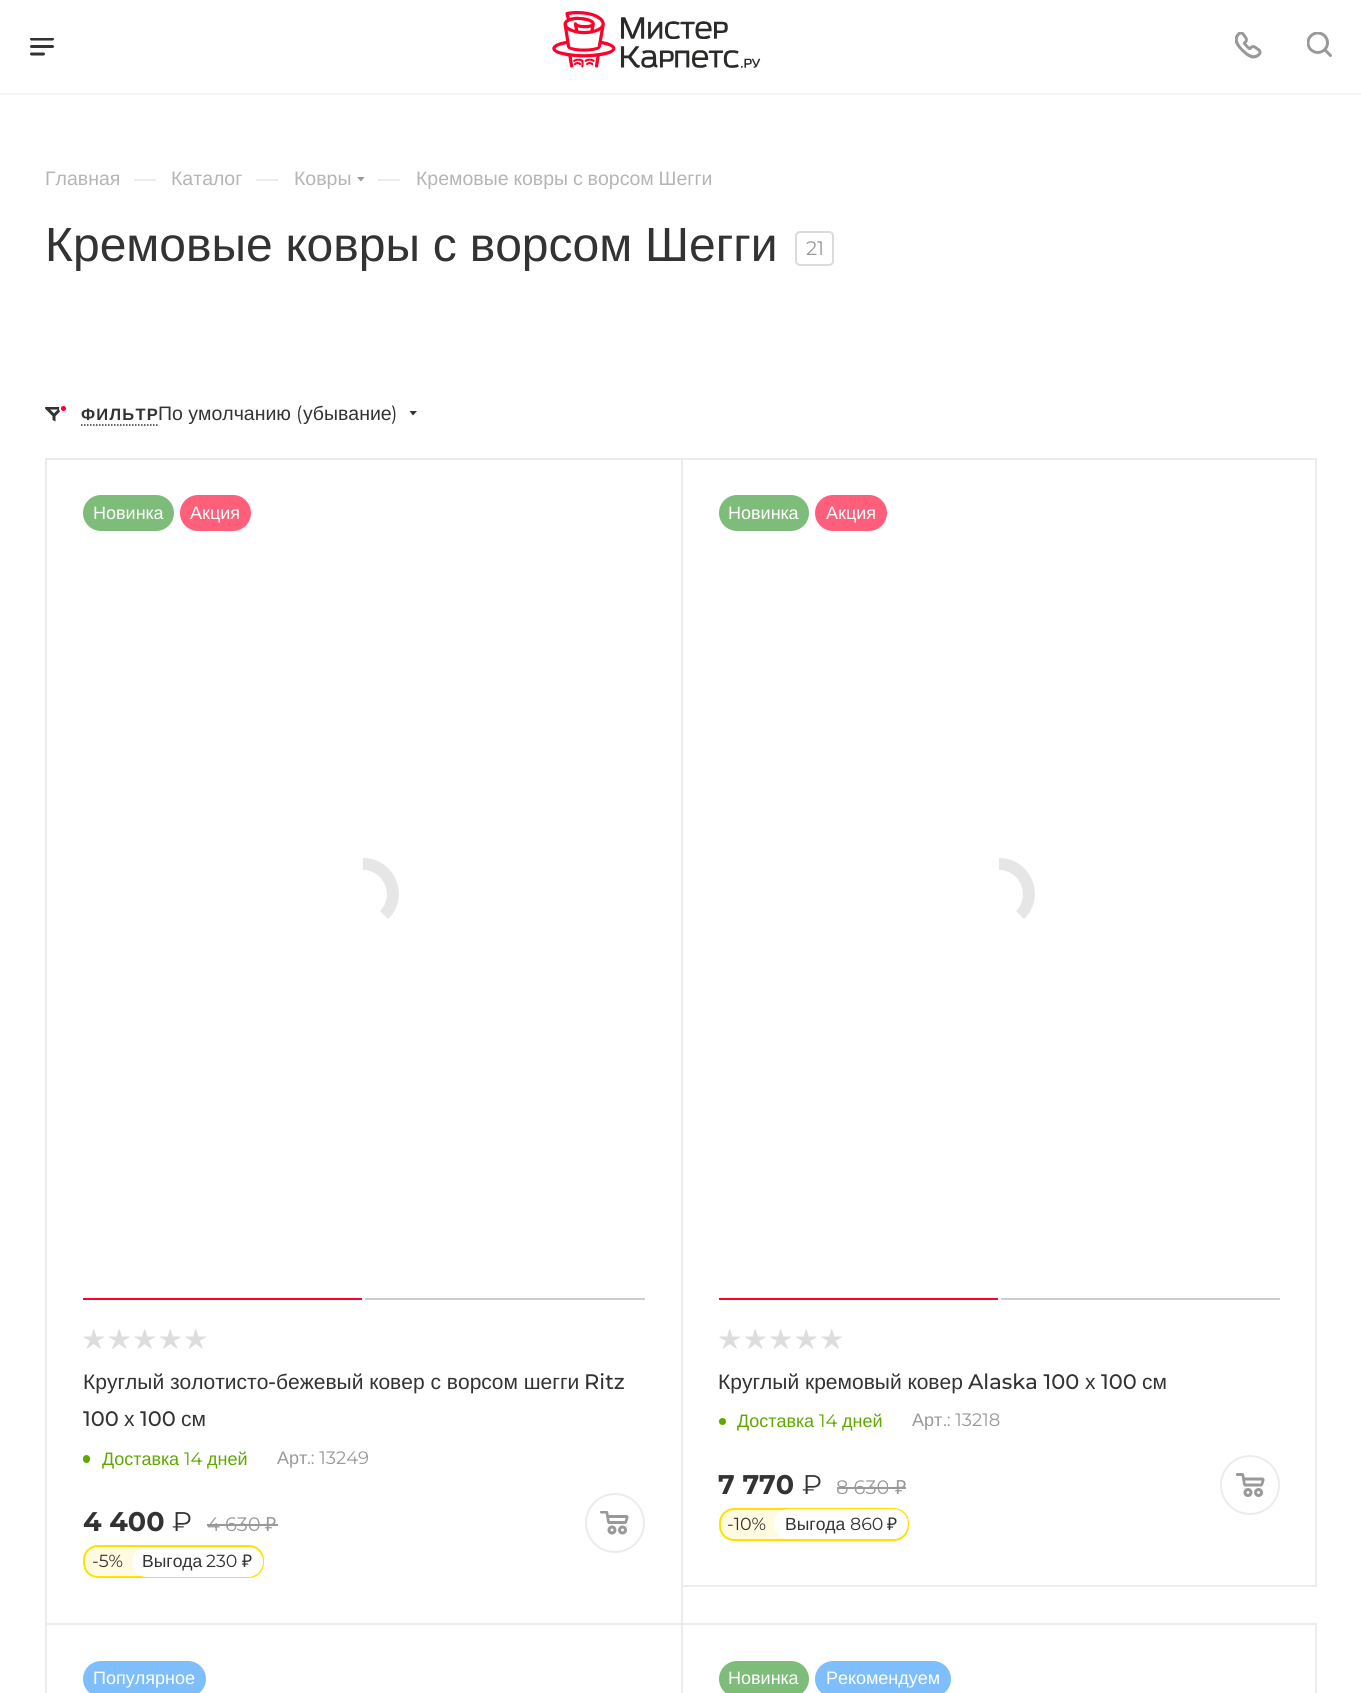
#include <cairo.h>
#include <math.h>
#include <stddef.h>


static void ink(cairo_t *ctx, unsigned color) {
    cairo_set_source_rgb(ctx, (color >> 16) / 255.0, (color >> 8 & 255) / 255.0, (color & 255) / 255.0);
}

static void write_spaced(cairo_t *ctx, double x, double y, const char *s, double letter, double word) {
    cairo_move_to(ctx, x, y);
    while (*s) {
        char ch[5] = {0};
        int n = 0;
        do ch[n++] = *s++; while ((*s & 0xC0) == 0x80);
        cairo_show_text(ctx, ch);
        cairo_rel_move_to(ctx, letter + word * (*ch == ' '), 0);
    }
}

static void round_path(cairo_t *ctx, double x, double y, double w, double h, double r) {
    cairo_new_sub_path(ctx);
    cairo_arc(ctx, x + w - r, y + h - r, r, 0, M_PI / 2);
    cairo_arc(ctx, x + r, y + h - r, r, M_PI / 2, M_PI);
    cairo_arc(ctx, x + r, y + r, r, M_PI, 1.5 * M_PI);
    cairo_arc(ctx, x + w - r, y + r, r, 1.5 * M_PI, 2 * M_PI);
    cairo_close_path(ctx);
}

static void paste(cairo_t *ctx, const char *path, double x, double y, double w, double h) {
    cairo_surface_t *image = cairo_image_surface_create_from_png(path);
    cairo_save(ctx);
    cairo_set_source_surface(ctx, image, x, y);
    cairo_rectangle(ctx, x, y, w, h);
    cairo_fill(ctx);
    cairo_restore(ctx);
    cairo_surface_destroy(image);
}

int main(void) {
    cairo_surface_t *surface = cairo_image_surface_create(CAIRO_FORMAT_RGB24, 1361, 1693);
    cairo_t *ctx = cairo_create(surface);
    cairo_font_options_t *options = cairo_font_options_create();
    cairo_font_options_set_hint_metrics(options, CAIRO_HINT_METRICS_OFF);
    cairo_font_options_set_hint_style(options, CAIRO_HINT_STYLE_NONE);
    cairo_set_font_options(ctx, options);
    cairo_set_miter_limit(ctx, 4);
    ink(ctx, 0xFFFFFF);
    cairo_paint(ctx);
    ink(ctx, 0xF5F5F5);
    cairo_rectangle(ctx, 0, 93, 1361, 2);
    cairo_fill(ctx);
    paste(ctx, "media/1.png", 30, 38, 24, 18);
    paste(ctx, "media/2.png", 552, 11, 209, 57);
    paste(ctx, "media/3.png", 1235, 32, 27, 27);
    paste(ctx, "media/4.png", 1307, 32, 25, 25);
    cairo_select_font_face(ctx, "Liberation Sans", CAIRO_FONT_SLANT_NORMAL, CAIRO_FONT_WEIGHT_NORMAL);
    cairo_set_font_size(ctx, 19.5);
    ink(ctx, 0xB6B5B5);
    cairo_move_to(ctx, 45, 185);
    cairo_show_text(ctx, "Главная");
    cairo_select_font_face(ctx, "Montserrat Thin", CAIRO_FONT_SLANT_NORMAL, CAIRO_FONT_WEIGHT_NORMAL);
    cairo_set_font_size(ctx, 22);
    ink(ctx, 0xDDDDDD);
    cairo_move_to(ctx, 134, 186);
    cairo_show_text(ctx, "—");
    cairo_select_font_face(ctx, "Liberation Sans", CAIRO_FONT_SLANT_NORMAL, CAIRO_FONT_WEIGHT_NORMAL);
    cairo_set_font_size(ctx, 19.5);
    ink(ctx, 0xB6B5B5);
    cairo_move_to(ctx, 171, 185);
    cairo_show_text(ctx, "Каталог");
    cairo_select_font_face(ctx, "Montserrat Thin", CAIRO_FONT_SLANT_NORMAL, CAIRO_FONT_WEIGHT_NORMAL);
    cairo_set_font_size(ctx, 22);
    ink(ctx, 0xDDDDDD);
    cairo_move_to(ctx, 256, 186);
    cairo_show_text(ctx, "—");
    cairo_select_font_face(ctx, "Liberation Sans", CAIRO_FONT_SLANT_NORMAL, CAIRO_FONT_WEIGHT_NORMAL);
    cairo_set_font_size(ctx, 19.5);
    ink(ctx, 0xB6B5B5);
    cairo_move_to(ctx, 294, 185);
    cairo_show_text(ctx, "Ковры");
    ink(ctx, 0x999999);
    cairo_set_fill_rule(ctx, CAIRO_FILL_RULE_EVEN_ODD);
    cairo_new_path(ctx);
    cairo_move_to(ctx, 357, 177);
    cairo_line_to(ctx, 364.5, 177);
    cairo_line_to(ctx, 361, 181.5);
    cairo_close_path(ctx);
    cairo_fill(ctx);
    cairo_select_font_face(ctx, "Montserrat Thin", CAIRO_FONT_SLANT_NORMAL, CAIRO_FONT_WEIGHT_NORMAL);
    cairo_set_font_size(ctx, 22);
    ink(ctx, 0xDDDDDD);
    cairo_move_to(ctx, 378, 186);
    cairo_show_text(ctx, "—");
    cairo_select_font_face(ctx, "Liberation Sans", CAIRO_FONT_SLANT_NORMAL, CAIRO_FONT_WEIGHT_NORMAL);
    cairo_set_font_size(ctx, 19.5);
    ink(ctx, 0xB6B5B5);
    write_spaced(ctx, 416, 185, "Кремовые ковры с ворсом Шегги", 0, -0.5);
    cairo_set_font_size(ctx, 48);
    ink(ctx, 0x333333);
    write_spaced(ctx, 45, 261, "Кремовые ковры с ворсом Шегги", 0, -0.5);
    round_path(ctx, 796, 232, 37, 33, 4);
    ink(ctx, 0xDBDBDB);
    cairo_stroke(ctx);
    cairo_select_font_face(ctx, "Montserrat Thin", CAIRO_FONT_SLANT_NORMAL, CAIRO_FONT_WEIGHT_NORMAL);
    cairo_set_font_size(ctx, 19.5);
    ink(ctx, 0x999999);
    cairo_move_to(ctx, 806, 255);
    cairo_show_text(ctx, "21");
    paste(ctx, "media/5.png", 45, 407, 16, 15);
    ink(ctx, 0xFF002B);
    cairo_arc(ctx, 63.5, 408.5, 3.5, 0, 2 * M_PI);
    cairo_fill_preserve(ctx);
    ink(ctx, 0xFFFFFF);
    cairo_stroke(ctx);
    cairo_select_font_face(ctx, "Liberation Sans", CAIRO_FONT_SLANT_NORMAL, CAIRO_FONT_WEIGHT_BOLD);
    cairo_set_font_size(ctx, 16.5);
    ink(ctx, 0x333333);
    write_spaced(ctx, 81, 420, "ФИЛЬТР", 1.25, 0);
    cairo_new_path(ctx);
    cairo_move_to(ctx, 81, 425);
    cairo_line_to(ctx, 159, 425);
    cairo_set_line_width(ctx, 1.5);
    cairo_set_dash(ctx, (double[]){1.5, 1.5}, 2, 0);
    cairo_stroke(ctx);
    cairo_select_font_face(ctx, "Liberation Sans", CAIRO_FONT_SLANT_NORMAL, CAIRO_FONT_WEIGHT_NORMAL);
    cairo_set_font_size(ctx, 19.5);
    cairo_move_to(ctx, 158, 420);
    cairo_show_text(ctx, "По умолчанию");
    cairo_select_font_face(ctx, "Montserrat Thin", CAIRO_FONT_SLANT_NORMAL, CAIRO_FONT_WEIGHT_NORMAL);
    cairo_move_to(ctx, 296, 420);
    cairo_show_text(ctx, "(");
    cairo_select_font_face(ctx, "Liberation Sans", CAIRO_FONT_SLANT_NORMAL, CAIRO_FONT_WEIGHT_NORMAL);
    cairo_move_to(ctx, 303, 420);
    cairo_show_text(ctx, "убывание");
    cairo_select_font_face(ctx, "Montserrat Thin", CAIRO_FONT_SLANT_NORMAL, CAIRO_FONT_WEIGHT_NORMAL);
    cairo_move_to(ctx, 391, 420);
    cairo_show_text(ctx, ")");
    cairo_new_path(ctx);
    cairo_move_to(ctx, 409.5, 411);
    cairo_line_to(ctx, 417, 411);
    cairo_line_to(ctx, 413, 415.5);
    cairo_close_path(ctx);
    cairo_fill(ctx);
    cairo_rectangle(ctx, 46, 459, 636, 1165);
    ink(ctx, 0xECECEC);
    cairo_set_line_width(ctx, 2);
    cairo_set_dash(ctx, NULL, 0, 0);
    cairo_stroke(ctx);
    ink(ctx, 0x7EBC7A);
    round_path(ctx, 83, 495, 91, 36, 18);
    cairo_fill(ctx);
    cairo_select_font_face(ctx, "Liberation Sans", CAIRO_FONT_SLANT_NORMAL, CAIRO_FONT_WEIGHT_NORMAL);
    cairo_set_font_size(ctx, 18);
    ink(ctx, 0xFFFFFF);
    cairo_move_to(ctx, 93, 519);
    cairo_show_text(ctx, "Новинка");
    ink(ctx, 0xFF5F7A);
    round_path(ctx, 180, 495, 71, 36, 18);
    cairo_fill(ctx);
    ink(ctx, 0xFFFFFF);
    cairo_move_to(ctx, 190, 519);
    cairo_show_text(ctx, "Акция");
    ink(ctx, 0xE6E6E6);
    cairo_set_fill_rule(ctx, CAIRO_FILL_RULE_WINDING);
    cairo_new_path(ctx);
    cairo_move_to(ctx, 363, 858);
    cairo_curve_to(ctx, 395, 858, 411, 897, 388, 919);
    cairo_line_to(ctx, 380, 911);
    cairo_curve_to(ctx, 395, 896, 384, 870, 363, 870);
    cairo_close_path(ctx);
    cairo_fill(ctx);
    ink(ctx, 0xFF002B);
    cairo_rectangle(ctx, 83, 1298, 279, 2);
    cairo_fill(ctx);
    ink(ctx, 0xCDCDCD);
    cairo_rectangle(ctx, 365, 1298, 280, 2);
    cairo_fill(ctx);
    paste(ctx, "media/6.png", 83, 1329, 21, 20);
    paste(ctx, "media/7.png", 109, 1329, 21, 20);
    paste(ctx, "media/6.png", 134, 1329, 21, 20);
    paste(ctx, "media/7.png", 160, 1329, 21, 20);
    paste(ctx, "media/6.png", 185, 1329, 21, 20);
    cairo_set_font_size(ctx, 21);
    ink(ctx, 0x333333);
    cairo_move_to(ctx, 83, 1389);
    cairo_show_text(ctx, "Круглый золотисто");
    cairo_select_font_face(ctx, "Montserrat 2 Thin", CAIRO_FONT_SLANT_NORMAL, CAIRO_FONT_WEIGHT_NORMAL);
    cairo_move_to(ctx, 268, 1389);
    cairo_show_text(ctx, "-");
    cairo_select_font_face(ctx, "Liberation Sans", CAIRO_FONT_SLANT_NORMAL, CAIRO_FONT_WEIGHT_NORMAL);
    cairo_move_to(ctx, 276, 1389);
    cairo_show_text(ctx, "бежевый ковер с ворсом шегги");
    cairo_select_font_face(ctx, "Montserrat 2 Thin", CAIRO_FONT_SLANT_NORMAL, CAIRO_FONT_WEIGHT_NORMAL);
    cairo_move_to(ctx, 584, 1389);
    cairo_show_text(ctx, "Ritz");
    cairo_move_to(ctx, 83, 1426);
    cairo_show_text(ctx, "100");
    cairo_select_font_face(ctx, "Liberation Sans", CAIRO_FONT_SLANT_NORMAL, CAIRO_FONT_WEIGHT_NORMAL);
    cairo_move_to(ctx, 124, 1426);
    cairo_show_text(ctx, "х");
    cairo_select_font_face(ctx, "Montserrat 2 Thin", CAIRO_FONT_SLANT_NORMAL, CAIRO_FONT_WEIGHT_NORMAL);
    cairo_move_to(ctx, 140, 1426);
    cairo_show_text(ctx, "100");
    cairo_select_font_face(ctx, "Liberation Sans", CAIRO_FONT_SLANT_NORMAL, CAIRO_FONT_WEIGHT_NORMAL);
    cairo_move_to(ctx, 181, 1426);
    cairo_show_text(ctx, "см");
    ink(ctx, 0x5FA800);
    round_path(ctx, 83, 1455, 7, 8, 3.5);
    cairo_fill(ctx);
    cairo_set_font_size(ctx, 18);
    cairo_move_to(ctx, 102, 1465);
    cairo_show_text(ctx, "Доставка");
    cairo_select_font_face(ctx, "Montserrat Thin", CAIRO_FONT_SLANT_NORMAL, CAIRO_FONT_WEIGHT_NORMAL);
    cairo_move_to(ctx, 184, 1465);
    cairo_show_text(ctx, "14");
    cairo_select_font_face(ctx, "Liberation Sans", CAIRO_FONT_SLANT_NORMAL, CAIRO_FONT_WEIGHT_NORMAL);
    cairo_move_to(ctx, 207, 1465);
    cairo_show_text(ctx, "дней");
    ink(ctx, 0x999999);
    cairo_move_to(ctx, 277, 1464);
    cairo_show_text(ctx, "Арт");
    cairo_select_font_face(ctx, "Montserrat Thin", CAIRO_FONT_SLANT_NORMAL, CAIRO_FONT_WEIGHT_NORMAL);
    cairo_move_to(ctx, 307, 1464);
    cairo_show_text(ctx, ".: 13249");
    cairo_select_font_face(ctx, "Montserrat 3 Thin", CAIRO_FONT_SLANT_NORMAL, CAIRO_FONT_WEIGHT_NORMAL);
    cairo_set_font_size(ctx, 27);
    ink(ctx, 0x333333);
    cairo_move_to(ctx, 83, 1531);
    cairo_show_text(ctx, "4 400");
    cairo_select_font_face(ctx, "Montserrat", CAIRO_FONT_SLANT_NORMAL, CAIRO_FONT_WEIGHT_NORMAL);
    cairo_move_to(ctx, 172, 1531);
    cairo_show_text(ctx, "₽");
    cairo_select_font_face(ctx, "Montserrat Thin", CAIRO_FONT_SLANT_NORMAL, CAIRO_FONT_WEIGHT_NORMAL);
    cairo_set_font_size(ctx, 19.5);
    ink(ctx, 0x999999);
    cairo_move_to(ctx, 207, 1531);
    cairo_show_text(ctx, "4 630");
    cairo_rectangle(ctx, 207, 1524, 54, 2);
    cairo_fill(ctx);
    cairo_select_font_face(ctx, "Noto Sans", CAIRO_FONT_SLANT_NORMAL, CAIRO_FONT_WEIGHT_NORMAL);
    cairo_move_to(ctx, 265, 1531);
    cairo_show_text(ctx, "₽");
    cairo_rectangle(ctx, 261, 1524, 17, 2);
    cairo_fill(ctx);
    ink(ctx, 0xFFFBE0);
    round_path(ctx, 84, 1546, 179, 31, 14);
    cairo_fill_preserve(ctx);
    ink(ctx, 0xFEE101);
    cairo_stroke(ctx);
    cairo_select_font_face(ctx, "Montserrat Thin", CAIRO_FONT_SLANT_NORMAL, CAIRO_FONT_WEIGHT_NORMAL);
    cairo_set_font_size(ctx, 17.5);
    ink(ctx, 0x333333);
    cairo_move_to(ctx, 92, 1567);
    cairo_show_text(ctx, "-5%");
    ink(ctx, 0xFFFFFF);
    round_path(ctx, 132, 1547, 131, 30, 15);
    cairo_fill(ctx);
    cairo_select_font_face(ctx, "Liberation Sans", CAIRO_FONT_SLANT_NORMAL, CAIRO_FONT_WEIGHT_NORMAL);
    ink(ctx, 0x333333);
    cairo_move_to(ctx, 142, 1567);
    cairo_show_text(ctx, "Выгода");
    cairo_select_font_face(ctx, "Montserrat Thin", CAIRO_FONT_SLANT_NORMAL, CAIRO_FONT_WEIGHT_NORMAL);
    cairo_move_to(ctx, 206, 1567);
    cairo_show_text(ctx, "230");
    cairo_select_font_face(ctx, "Noto Sans", CAIRO_FONT_SLANT_NORMAL, CAIRO_FONT_WEIGHT_NORMAL);
    cairo_move_to(ctx, 242, 1567);
    cairo_show_text(ctx, "₽");
    cairo_new_path(ctx);
    cairo_arc(ctx, 615, 1523, 29, 0, 2 * M_PI);
    ink(ctx, 0xECECEC);
    cairo_stroke(ctx);
    paste(ctx, "media/8.png", 600, 1511, 29, 24);
    cairo_rectangle(ctx, 682, 459, 634, 1127);
    cairo_stroke(ctx);
    ink(ctx, 0x7EBC7A);
    round_path(ctx, 719, 495, 90, 36, 18);
    cairo_fill(ctx);
    cairo_select_font_face(ctx, "Liberation Sans", CAIRO_FONT_SLANT_NORMAL, CAIRO_FONT_WEIGHT_NORMAL);
    cairo_set_font_size(ctx, 18);
    ink(ctx, 0xFFFFFF);
    cairo_move_to(ctx, 728, 519);
    cairo_show_text(ctx, "Новинка");
    ink(ctx, 0xFF5F7A);
    round_path(ctx, 815, 495, 72, 36, 18);
    cairo_fill(ctx);
    ink(ctx, 0xFFFFFF);
    cairo_move_to(ctx, 826, 519);
    cairo_show_text(ctx, "Акция");
    ink(ctx, 0xE6E6E6);
    cairo_new_path(ctx);
    cairo_move_to(ctx, 999, 858);
    cairo_curve_to(ctx, 1031, 858, 1047, 897, 1024, 919);
    cairo_line_to(ctx, 1016, 911);
    cairo_curve_to(ctx, 1031, 896, 1020, 870, 999, 870);
    cairo_close_path(ctx);
    cairo_fill(ctx);
    ink(ctx, 0xFF002B);
    cairo_rectangle(ctx, 719, 1298, 279, 2);
    cairo_fill(ctx);
    ink(ctx, 0xCDCDCD);
    cairo_rectangle(ctx, 1001, 1298, 279, 2);
    cairo_fill(ctx);
    paste(ctx, "media/6.png", 719, 1329, 21, 20);
    paste(ctx, "media/7.png", 745, 1329, 21, 20);
    paste(ctx, "media/6.png", 770, 1329, 21, 20);
    paste(ctx, "media/7.png", 796, 1329, 21, 20);
    paste(ctx, "media/6.png", 821, 1329, 21, 20);
    cairo_set_font_size(ctx, 21);
    ink(ctx, 0x333333);
    cairo_move_to(ctx, 718, 1389);
    cairo_show_text(ctx, "Круглый кремовый ковер");
    cairo_select_font_face(ctx, "Montserrat 2 Thin", CAIRO_FONT_SLANT_NORMAL, CAIRO_FONT_WEIGHT_NORMAL);
    cairo_move_to(ctx, 968, 1389);
    cairo_show_text(ctx, "Alaska 100");
    cairo_select_font_face(ctx, "Liberation Sans", CAIRO_FONT_SLANT_NORMAL, CAIRO_FONT_WEIGHT_NORMAL);
    cairo_move_to(ctx, 1085, 1389);
    cairo_show_text(ctx, "х");
    cairo_select_font_face(ctx, "Montserrat 2 Thin", CAIRO_FONT_SLANT_NORMAL, CAIRO_FONT_WEIGHT_NORMAL);
    cairo_move_to(ctx, 1101, 1389);
    cairo_show_text(ctx, "100");
    cairo_select_font_face(ctx, "Liberation Sans", CAIRO_FONT_SLANT_NORMAL, CAIRO_FONT_WEIGHT_NORMAL);
    cairo_move_to(ctx, 1142, 1389);
    cairo_show_text(ctx, "см");
    ink(ctx, 0x5FA800);
    cairo_new_path(ctx);
    cairo_arc(ctx, 722.5, 1421.5, 3.5, 0, 2 * M_PI);
    cairo_fill(ctx);
    cairo_set_font_size(ctx, 18);
    cairo_move_to(ctx, 737, 1427);
    cairo_show_text(ctx, "Доставка");
    cairo_select_font_face(ctx, "Montserrat Thin", CAIRO_FONT_SLANT_NORMAL, CAIRO_FONT_WEIGHT_NORMAL);
    cairo_move_to(ctx, 819, 1427);
    cairo_show_text(ctx, "14");
    cairo_select_font_face(ctx, "Liberation Sans", CAIRO_FONT_SLANT_NORMAL, CAIRO_FONT_WEIGHT_NORMAL);
    cairo_move_to(ctx, 842, 1427);
    cairo_show_text(ctx, "дней");
    ink(ctx, 0x999999);
    cairo_move_to(ctx, 912, 1426);
    cairo_show_text(ctx, "Арт");
    cairo_select_font_face(ctx, "Montserrat Thin", CAIRO_FONT_SLANT_NORMAL, CAIRO_FONT_WEIGHT_NORMAL);
    cairo_move_to(ctx, 943, 1426);
    cairo_show_text(ctx, ".: 13218");
    cairo_select_font_face(ctx, "Montserrat 3 Thin", CAIRO_FONT_SLANT_NORMAL, CAIRO_FONT_WEIGHT_NORMAL);
    cairo_set_font_size(ctx, 27);
    ink(ctx, 0x333333);
    cairo_move_to(ctx, 718, 1494);
    cairo_show_text(ctx, "7 770");
    cairo_select_font_face(ctx, "Montserrat", CAIRO_FONT_SLANT_NORMAL, CAIRO_FONT_WEIGHT_NORMAL);
    cairo_move_to(ctx, 802, 1494);
    cairo_show_text(ctx, "₽");
    cairo_select_font_face(ctx, "Montserrat Thin", CAIRO_FONT_SLANT_NORMAL, CAIRO_FONT_WEIGHT_NORMAL);
    cairo_set_font_size(ctx, 19.5);
    ink(ctx, 0x999999);
    cairo_move_to(ctx, 836, 1494);
    cairo_show_text(ctx, "8 630");
    cairo_rectangle(ctx, 837, 1487, 53, 2);
    cairo_fill(ctx);
    cairo_select_font_face(ctx, "Noto Sans", CAIRO_FONT_SLANT_NORMAL, CAIRO_FONT_WEIGHT_NORMAL);
    cairo_move_to(ctx, 895, 1494);
    cairo_show_text(ctx, "₽");
    cairo_rectangle(ctx, 890, 1487, 16, 2);
    cairo_fill(ctx);
    ink(ctx, 0xFFFBE0);
    round_path(ctx, 720, 1509, 188, 31, 14);
    cairo_fill_preserve(ctx);
    ink(ctx, 0xFEE101);
    cairo_stroke(ctx);
    cairo_select_font_face(ctx, "Montserrat Thin", CAIRO_FONT_SLANT_NORMAL, CAIRO_FONT_WEIGHT_NORMAL);
    cairo_set_font_size(ctx, 17.5);
    ink(ctx, 0x333333);
    cairo_move_to(ctx, 727, 1530);
    cairo_show_text(ctx, "-10%");
    ink(ctx, 0xFFFFFF);
    round_path(ctx, 774, 1509, 134, 30, 15);
    cairo_fill(ctx);
    cairo_select_font_face(ctx, "Liberation Sans", CAIRO_FONT_SLANT_NORMAL, CAIRO_FONT_WEIGHT_NORMAL);
    ink(ctx, 0x333333);
    cairo_move_to(ctx, 785, 1530);
    cairo_show_text(ctx, "Выгода");
    cairo_select_font_face(ctx, "Montserrat Thin", CAIRO_FONT_SLANT_NORMAL, CAIRO_FONT_WEIGHT_NORMAL);
    cairo_move_to(ctx, 850, 1530);
    cairo_show_text(ctx, "860");
    cairo_select_font_face(ctx, "Noto Sans", CAIRO_FONT_SLANT_NORMAL, CAIRO_FONT_WEIGHT_NORMAL);
    cairo_move_to(ctx, 887, 1530);
    cairo_show_text(ctx, "₽");
    cairo_new_path(ctx);
    cairo_arc(ctx, 1250, 1485, 29, 0, 2 * M_PI);
    ink(ctx, 0xECECEC);
    cairo_stroke(ctx);
    paste(ctx, "media/9.png", 1236, 1473, 29, 24);
    cairo_rectangle(ctx, 46, 1624, 636, 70);
    cairo_stroke(ctx);
    ink(ctx, 0x7EBEFC);
    round_path(ctx, 83, 1661, 123, 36, 18);
    cairo_fill(ctx);
    cairo_select_font_face(ctx, "Liberation Sans", CAIRO_FONT_SLANT_NORMAL, CAIRO_FONT_WEIGHT_NORMAL);
    cairo_set_font_size(ctx, 18);
    ink(ctx, 0xFFFFFF);
    cairo_move_to(ctx, 93, 1684);
    cairo_show_text(ctx, "Популярное");
    cairo_rectangle(ctx, 682, 1624, 634, 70);
    ink(ctx, 0xECECEC);
    cairo_stroke(ctx);
    ink(ctx, 0x7EBC7A);
    round_path(ctx, 719, 1661, 90, 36, 18);
    cairo_fill(ctx);
    ink(ctx, 0xFFFFFF);
    cairo_move_to(ctx, 728, 1684);
    cairo_show_text(ctx, "Новинка");
    ink(ctx, 0x7EBEFC);
    round_path(ctx, 815, 1661, 136, 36, 18);
    cairo_fill(ctx);
    ink(ctx, 0xFFFFFF);
    cairo_move_to(ctx, 826, 1684);
    cairo_show_text(ctx, "Рекомендуем");
    cairo_surface_write_to_png(surface, "image.png");
    cairo_font_options_destroy(options);
    cairo_destroy(ctx);
    cairo_surface_destroy(surface);
    return 0;
}
